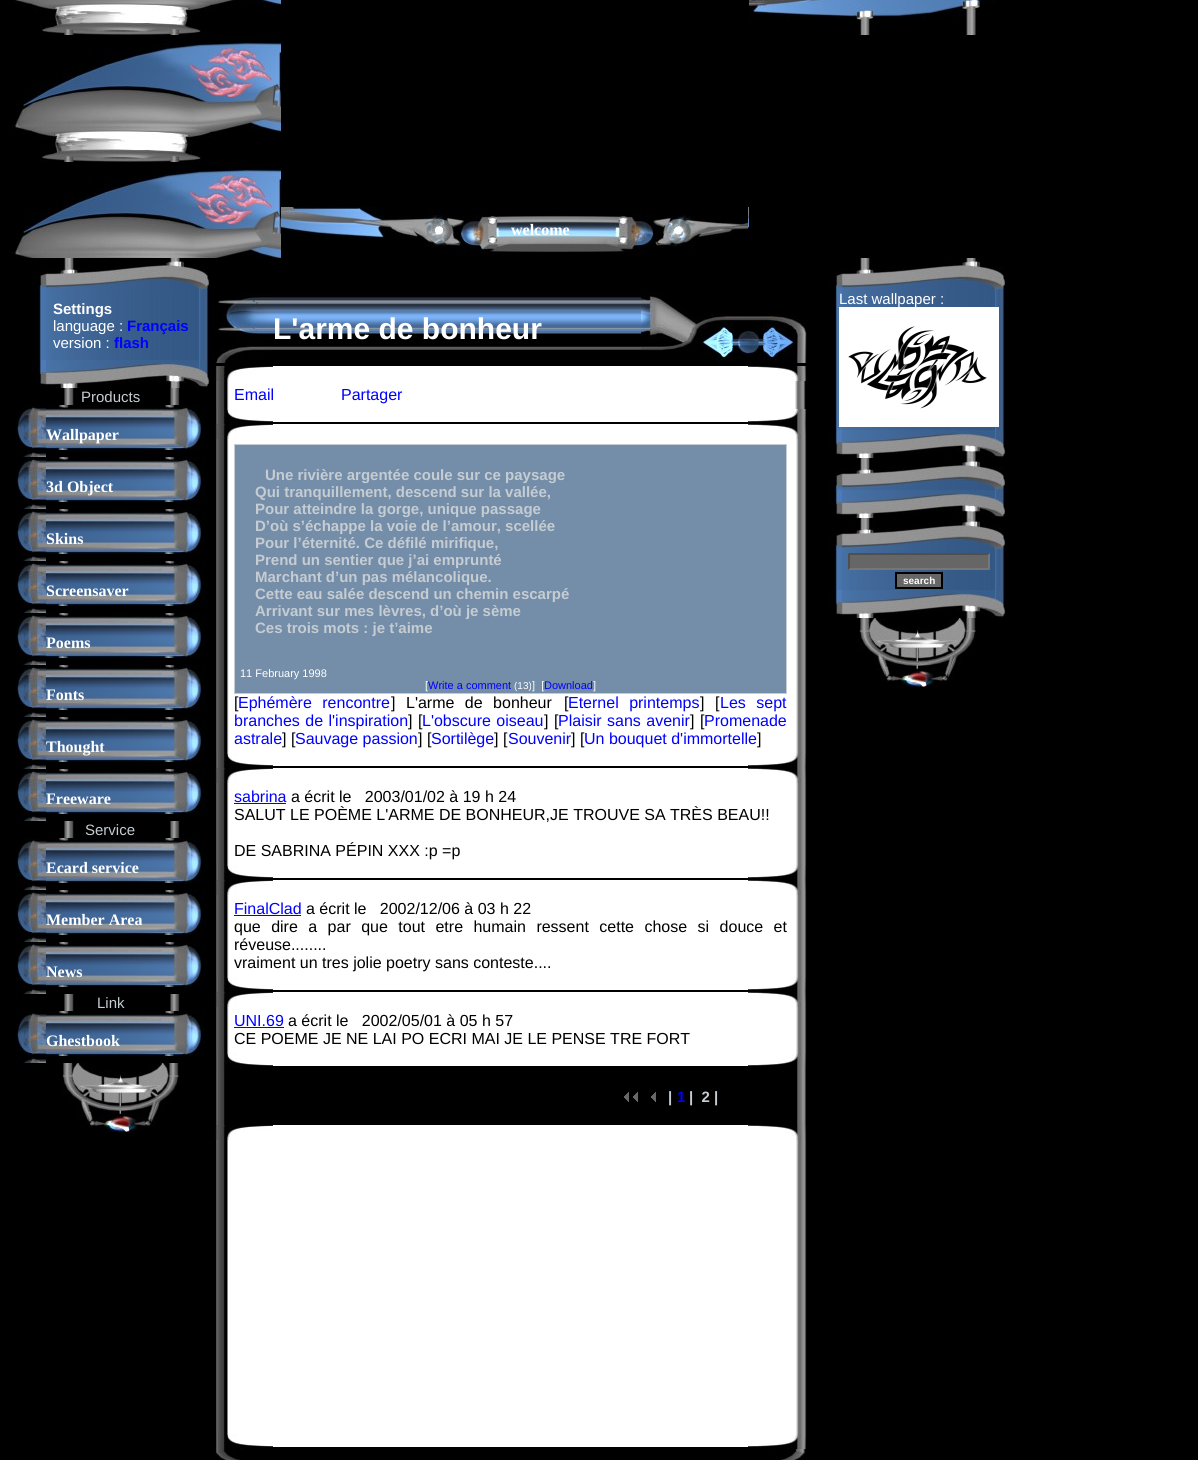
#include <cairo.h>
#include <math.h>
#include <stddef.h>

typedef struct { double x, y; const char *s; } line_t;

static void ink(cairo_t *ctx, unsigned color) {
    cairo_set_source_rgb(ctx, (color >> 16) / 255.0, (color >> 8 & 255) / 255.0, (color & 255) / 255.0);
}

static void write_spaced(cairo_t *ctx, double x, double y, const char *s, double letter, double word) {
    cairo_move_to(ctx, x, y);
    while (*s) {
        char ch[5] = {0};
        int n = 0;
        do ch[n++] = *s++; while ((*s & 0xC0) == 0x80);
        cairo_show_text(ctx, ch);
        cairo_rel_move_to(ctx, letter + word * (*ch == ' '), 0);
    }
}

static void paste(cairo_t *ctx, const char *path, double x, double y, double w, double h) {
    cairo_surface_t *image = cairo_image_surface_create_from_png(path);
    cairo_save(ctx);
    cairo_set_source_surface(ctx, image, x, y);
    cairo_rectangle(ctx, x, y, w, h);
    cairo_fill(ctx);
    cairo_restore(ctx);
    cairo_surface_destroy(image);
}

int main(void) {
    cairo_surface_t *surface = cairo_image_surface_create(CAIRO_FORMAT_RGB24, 1198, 1460);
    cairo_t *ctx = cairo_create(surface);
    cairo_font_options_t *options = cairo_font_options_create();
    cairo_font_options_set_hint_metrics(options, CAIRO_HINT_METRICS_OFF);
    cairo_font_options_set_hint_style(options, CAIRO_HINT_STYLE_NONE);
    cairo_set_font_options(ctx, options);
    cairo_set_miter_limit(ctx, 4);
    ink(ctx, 0x000000);
    cairo_paint(ctx);
    paste(ctx, "media/1.png", 12, 0, 269, 258);
    paste(ctx, "media/2.png", 749, 0, 247, 35);
    paste(ctx, "media/3.png", 281, 207, 468, 48);
    cairo_select_font_face(ctx, "Liberation Serif", CAIRO_FONT_SLANT_NORMAL, CAIRO_FONT_WEIGHT_BOLD);
    cairo_set_font_size(ctx, 16);
    ink(ctx, 0xFFFFFF);
    cairo_move_to(ctx, 511, 235);
    cairo_show_text(ctx, "welcome");
    paste(ctx, "media/4.png", 32, 258, 179, 32);
    paste(ctx, "media/5.png", 39, 290, 170, 70);
    cairo_select_font_face(ctx, "Liberation Sans", CAIRO_FONT_SLANT_NORMAL, CAIRO_FONT_WEIGHT_BOLD);
    cairo_set_font_size(ctx, 15);
    cairo_move_to(ctx, 53, 314);
    cairo_show_text(ctx, "Settings");
    cairo_select_font_face(ctx, "Liberation Sans", CAIRO_FONT_SLANT_NORMAL, CAIRO_FONT_WEIGHT_NORMAL);
    cairo_move_to(ctx, 53, 331);
    cairo_show_text(ctx, "language :");
    cairo_select_font_face(ctx, "Liberation Sans", CAIRO_FONT_SLANT_NORMAL, CAIRO_FONT_WEIGHT_BOLD);
    ink(ctx, 0x0000FF);
    cairo_move_to(ctx, 127, 331);
    cairo_show_text(ctx, "Français");
    cairo_select_font_face(ctx, "Liberation Sans", CAIRO_FONT_SLANT_NORMAL, CAIRO_FONT_WEIGHT_NORMAL);
    ink(ctx, 0xFFFFFF);
    cairo_move_to(ctx, 53, 348);
    cairo_show_text(ctx, "version :");
    cairo_select_font_face(ctx, "Liberation Sans", CAIRO_FONT_SLANT_NORMAL, CAIRO_FONT_WEIGHT_BOLD);
    ink(ctx, 0x0000FF);
    cairo_move_to(ctx, 114, 348);
    cairo_show_text(ctx, "flash");
    paste(ctx, "media/6.png", 32, 360, 178, 28);
    paste(ctx, "media/7.png", 64, 388, 116, 17);
    cairo_select_font_face(ctx, "Liberation Sans", CAIRO_FONT_SLANT_NORMAL, CAIRO_FONT_WEIGHT_NORMAL);
    ink(ctx, 0xC5CCD2);
    cairo_move_to(ctx, 81, 402);
    cairo_show_text(ctx, "Products");
    paste(ctx, "media/8.png", 16, 405, 30, 52);
    paste(ctx, "media/9.png", 46, 405, 160, 45);
    cairo_select_font_face(ctx, "Liberation Serif", CAIRO_FONT_SLANT_NORMAL, CAIRO_FONT_WEIGHT_BOLD);
    cairo_set_font_size(ctx, 16);
    ink(ctx, 0xFFFFFF);
    cairo_move_to(ctx, 46, 440);
    cairo_show_text(ctx, "Wallpaper");
    paste(ctx, "media/8.png", 16, 457, 30, 52);
    paste(ctx, "media/9.png", 46, 457, 160, 45);
    cairo_move_to(ctx, 46, 492);
    cairo_show_text(ctx, "3d Object");
    paste(ctx, "media/8.png", 16, 509, 30, 52);
    paste(ctx, "media/9.png", 46, 509, 160, 45);
    cairo_move_to(ctx, 46, 544);
    cairo_show_text(ctx, "Skins");
    paste(ctx, "media/8.png", 16, 561, 30, 52);
    paste(ctx, "media/9.png", 46, 561, 160, 45);
    cairo_move_to(ctx, 46, 596);
    cairo_show_text(ctx, "Screensaver");
    paste(ctx, "media/8.png", 16, 613, 30, 52);
    paste(ctx, "media/9.png", 46, 613, 160, 45);
    cairo_move_to(ctx, 46, 648);
    cairo_show_text(ctx, "Poems");
    paste(ctx, "media/8.png", 16, 665, 30, 52);
    paste(ctx, "media/9.png", 46, 665, 160, 45);
    cairo_move_to(ctx, 46, 700);
    cairo_show_text(ctx, "Fonts");
    paste(ctx, "media/8.png", 16, 717, 30, 52);
    paste(ctx, "media/9.png", 46, 717, 160, 45);
    cairo_move_to(ctx, 46, 752);
    cairo_show_text(ctx, "Thought");
    paste(ctx, "media/8.png", 16, 769, 30, 52);
    paste(ctx, "media/9.png", 46, 769, 160, 45);
    cairo_move_to(ctx, 46, 804);
    cairo_show_text(ctx, "Freeware");
    paste(ctx, "media/7.png", 64, 821, 116, 17);
    cairo_select_font_face(ctx, "Liberation Sans", CAIRO_FONT_SLANT_NORMAL, CAIRO_FONT_WEIGHT_NORMAL);
    cairo_set_font_size(ctx, 15);
    ink(ctx, 0xC5CCD2);
    cairo_move_to(ctx, 85, 835);
    cairo_show_text(ctx, "Service");
    paste(ctx, "media/8.png", 16, 838, 30, 52);
    paste(ctx, "media/9.png", 46, 838, 160, 45);
    cairo_select_font_face(ctx, "Liberation Serif", CAIRO_FONT_SLANT_NORMAL, CAIRO_FONT_WEIGHT_BOLD);
    cairo_set_font_size(ctx, 16);
    ink(ctx, 0xFFFFFF);
    cairo_move_to(ctx, 46, 873);
    cairo_show_text(ctx, "Ecard service");
    paste(ctx, "media/8.png", 16, 890, 30, 52);
    paste(ctx, "media/9.png", 46, 890, 160, 45);
    cairo_move_to(ctx, 46, 925);
    cairo_show_text(ctx, "Member Area");
    paste(ctx, "media/8.png", 16, 942, 30, 52);
    paste(ctx, "media/9.png", 46, 942, 160, 45);
    cairo_move_to(ctx, 46, 977);
    cairo_show_text(ctx, "News");
    paste(ctx, "media/7.png", 64, 994, 116, 17);
    cairo_select_font_face(ctx, "Liberation Sans", CAIRO_FONT_SLANT_NORMAL, CAIRO_FONT_WEIGHT_NORMAL);
    cairo_set_font_size(ctx, 15);
    ink(ctx, 0xC5CCD2);
    cairo_move_to(ctx, 97, 1008);
    cairo_show_text(ctx, "Link");
    paste(ctx, "media/8.png", 16, 1011, 30, 52);
    paste(ctx, "media/9.png", 46, 1011, 160, 45);
    cairo_select_font_face(ctx, "Liberation Serif", CAIRO_FONT_SLANT_NORMAL, CAIRO_FONT_WEIGHT_BOLD);
    cairo_set_font_size(ctx, 16);
    ink(ctx, 0xFFFFFF);
    cairo_move_to(ctx, 46, 1046);
    cairo_show_text(ctx, "Ghestbook");
    paste(ctx, "media/10.png", 62, 1063, 117, 69);
    paste(ctx, "media/11.png", 213, 294, 60, 69);
    paste(ctx, "media/12.png", 273, 294, 368, 56);
    cairo_select_font_face(ctx, "Liberation Sans", CAIRO_FONT_SLANT_NORMAL, CAIRO_FONT_WEIGHT_BOLD);
    cairo_set_font_size(ctx, 30);
    cairo_move_to(ctx, 273, 339);
    cairo_show_text(ctx, "L'arme de bonheur");
    paste(ctx, "media/13.png", 641, 292, 60, 59);
    paste(ctx, "media/14.png", 701, 314, 32, 48);
    paste(ctx, "media/15.png", 733, 316, 30, 46);
    paste(ctx, "media/16.png", 763, 314, 44, 49);
    paste(ctx, "media/17.png", 215, 366, 58, 15);
    cairo_rectangle(ctx, 273, 366, 475, 15);
    cairo_fill(ctx);
    paste(ctx, "media/18.png", 748, 366, 59, 15);
    paste(ctx, "media/19.png", 216, 381, 13, 28);
    cairo_rectangle(ctx, 229, 381, 562, 28);
    cairo_fill(ctx);
    cairo_select_font_face(ctx, "Liberation Sans", CAIRO_FONT_SLANT_NORMAL, CAIRO_FONT_WEIGHT_NORMAL);
    cairo_set_font_size(ctx, 16);
    ink(ctx, 0x0000FF);
    cairo_move_to(ctx, 234, 400);
    cairo_show_text(ctx, "Email");
    cairo_move_to(ctx, 341, 400);
    cairo_show_text(ctx, "Partager");
    paste(ctx, "media/20.png", 791, 381, 15, 28);
    paste(ctx, "media/21.png", 216, 409, 57, 15);
    ink(ctx, 0xFFFFFF);
    cairo_rectangle(ctx, 273, 409, 475, 13);
    cairo_fill(ctx);
    paste(ctx, "media/22.png", 748, 409, 59, 15);
    paste(ctx, "media/17.png", 215, 424, 58, 15);
    cairo_rectangle(ctx, 273, 424, 475, 15);
    cairo_fill(ctx);
    paste(ctx, "media/18.png", 748, 424, 59, 15);
    paste(ctx, "media/23.png", 216, 439, 13, 314);
    cairo_rectangle(ctx, 229, 439, 563, 314);
    cairo_fill(ctx);
    ink(ctx, 0x748DA8);
    cairo_rectangle(ctx, 234.5, 444.5, 552, 249);
    cairo_fill_preserve(ctx);
    ink(ctx, 0xC5CCD2);
    cairo_set_line_width(ctx, 1);
    cairo_stroke(ctx);
    cairo_select_font_face(ctx, "Liberation Sans", CAIRO_FONT_SLANT_NORMAL, CAIRO_FONT_WEIGHT_BOLD);
    cairo_set_font_size(ctx, 15);
    {
        static const line_t items[] = {
            {265, 480, "Une rivière argentée coule sur ce paysage"},
            {255, 497, "Qui tranquillement, descend sur la vallée,"},
            {255, 514, "Pour atteindre la gorge, unique passage"},
            {255, 531, "D’où s’échappe la voie de l’amour, scellée"},
            {255, 548, "Pour l’éternité. Ce défilé mirifique,"},
            {255, 565, "Prend un sentier que j’ai emprunté"},
            {255, 582, "Marchant d’un pas mélancolique."},
            {255, 599, "Cette eau salée descend un chemin escarpé"},
            {255, 616, "Arrivant sur mes lèvres, d’où je sème"},
            {255, 633, "Ces trois mots : je t’aime"},
        };
        for (size_t i = 0; i < sizeof items / sizeof *items; i++) {
            cairo_move_to(ctx, items[i].x, items[i].y);
            cairo_show_text(ctx, items[i].s);
        }
    }
    cairo_select_font_face(ctx, "Liberation Sans", CAIRO_FONT_SLANT_NORMAL, CAIRO_FONT_WEIGHT_NORMAL);
    cairo_set_font_size(ctx, 11);
    ink(ctx, 0xFFFFFF);
    cairo_move_to(ctx, 240, 677);
    cairo_show_text(ctx, "11 February 1998");
    cairo_move_to(ctx, 425, 689);
    cairo_show_text(ctx, "[");
    ink(ctx, 0x0000FF);
    cairo_move_to(ctx, 428, 689);
    cairo_show_text(ctx, "Write a comment");
    cairo_set_font_size(ctx, 10);
    ink(ctx, 0xFFFFFF);
    cairo_move_to(ctx, 514, 689);
    cairo_show_text(ctx, "(13)");
    cairo_set_font_size(ctx, 11);
    cairo_move_to(ctx, 532, 689);
    cairo_show_text(ctx, "]  [");
    ink(ctx, 0x0000FF);
    cairo_move_to(ctx, 544, 689);
    cairo_show_text(ctx, "Download");
    ink(ctx, 0xFFFFFF);
    cairo_move_to(ctx, 593, 689);
    cairo_show_text(ctx, "]");
    cairo_set_font_size(ctx, 16);
    ink(ctx, 0x000000);
    cairo_move_to(ctx, 234, 708);
    cairo_show_text(ctx, "[");
    ink(ctx, 0x0000FF);
    write_spaced(ctx, 238, 708, "Ephémère rencontre", 0, 6);
    ink(ctx, 0x000000);
    cairo_move_to(ctx, 391, 708);
    cairo_show_text(ctx, "]");
    write_spaced(ctx, 406, 708, "L'arme de bonheur", 0, 6);
    cairo_move_to(ctx, 564, 708);
    cairo_show_text(ctx, "[");
    ink(ctx, 0x0000FF);
    write_spaced(ctx, 568, 708, "Eternel printemps", 0, 6);
    ink(ctx, 0x000000);
    write_spaced(ctx, 700, 708, "] [", 0, 6);
    ink(ctx, 0x0000FF);
    write_spaced(ctx, 720, 708, "Les sept", 0, 6);
    write_spaced(ctx, 234, 726, "branches de l'inspiration", 0, 1);
    ink(ctx, 0x000000);
    write_spaced(ctx, 408, 726, "] [", 0, 1);
    ink(ctx, 0x0000FF);
    write_spaced(ctx, 422, 726, "L'obscure oiseau", 0, 1);
    ink(ctx, 0x000000);
    write_spaced(ctx, 544, 726, "] [", 0, 1);
    ink(ctx, 0x0000FF);
    write_spaced(ctx, 558, 726, "Plaisir sans avenir", 0, 1);
    ink(ctx, 0x000000);
    write_spaced(ctx, 690, 726, "] [", 0, 1);
    ink(ctx, 0x0000FF);
    cairo_move_to(ctx, 704, 726);
    cairo_show_text(ctx, "Promenade");
    cairo_move_to(ctx, 234, 744);
    cairo_show_text(ctx, "astrale");
    ink(ctx, 0x000000);
    cairo_move_to(ctx, 282, 744);
    cairo_show_text(ctx, "] [");
    ink(ctx, 0x0000FF);
    cairo_move_to(ctx, 295, 744);
    cairo_show_text(ctx, "Sauvage passion");
    ink(ctx, 0x000000);
    cairo_move_to(ctx, 418, 744);
    cairo_show_text(ctx, "] [");
    ink(ctx, 0x0000FF);
    cairo_move_to(ctx, 431, 744);
    cairo_show_text(ctx, "Sortilège");
    ink(ctx, 0x000000);
    cairo_move_to(ctx, 494, 744);
    cairo_show_text(ctx, "] [");
    ink(ctx, 0x0000FF);
    cairo_move_to(ctx, 508, 744);
    cairo_show_text(ctx, "Souvenir");
    ink(ctx, 0x000000);
    cairo_move_to(ctx, 571, 744);
    cairo_show_text(ctx, "] [");
    ink(ctx, 0x0000FF);
    cairo_move_to(ctx, 584, 744);
    cairo_show_text(ctx, "Un bouquet d'immortelle");
    ink(ctx, 0x000000);
    cairo_move_to(ctx, 757, 744);
    cairo_show_text(ctx, "]");
    paste(ctx, "media/24.png", 792, 439, 15, 314);
    paste(ctx, "media/21.png", 216, 753, 57, 15);
    ink(ctx, 0xFFFFFF);
    cairo_rectangle(ctx, 273, 753, 475, 13);
    cairo_fill(ctx);
    paste(ctx, "media/22.png", 748, 753, 59, 15);
    paste(ctx, "media/17.png", 215, 768, 58, 15);
    cairo_rectangle(ctx, 273, 768, 475, 15);
    cairo_fill(ctx);
    paste(ctx, "media/18.png", 748, 768, 59, 15);
    paste(ctx, "media/25.png", 216, 783, 13, 82);
    cairo_rectangle(ctx, 229, 783, 563, 82);
    cairo_fill(ctx);
    ink(ctx, 0x0000FF);
    cairo_move_to(ctx, 234, 802);
    cairo_show_text(ctx, "sabrina");
    cairo_rectangle(ctx, 234, 803, 52, 1);
    cairo_fill(ctx);
    ink(ctx, 0x000000);
    {
        static const line_t items[] = {
            {291, 802, "a écrit le   2003/01/02 à 19 h 24"},
            {234, 820, "SALUT LE POÈME L'ARME DE BONHEUR,JE TROUVE SA TRÈS BEAU!!"},
            {234, 856, "DE SABRINA PÉPIN XXX :p =p"},
        };
        for (size_t i = 0; i < sizeof items / sizeof *items; i++) {
            cairo_move_to(ctx, items[i].x, items[i].y);
            cairo_show_text(ctx, items[i].s);
        }
    }
    paste(ctx, "media/26.png", 792, 783, 15, 82);
    paste(ctx, "media/21.png", 216, 865, 57, 15);
    ink(ctx, 0xFFFFFF);
    cairo_rectangle(ctx, 273, 865, 475, 13);
    cairo_fill(ctx);
    paste(ctx, "media/22.png", 748, 865, 59, 15);
    paste(ctx, "media/17.png", 215, 880, 58, 15);
    cairo_rectangle(ctx, 273, 880, 475, 15);
    cairo_fill(ctx);
    paste(ctx, "media/18.png", 748, 880, 59, 15);
    paste(ctx, "media/25.png", 216, 895, 13, 82);
    cairo_rectangle(ctx, 229, 895, 563, 82);
    cairo_fill(ctx);
    ink(ctx, 0x0000FF);
    cairo_move_to(ctx, 234, 914);
    cairo_show_text(ctx, "FinalClad");
    cairo_rectangle(ctx, 234, 915, 67, 1);
    cairo_fill(ctx);
    ink(ctx, 0x000000);
    cairo_move_to(ctx, 306, 914);
    cairo_show_text(ctx, "a écrit le   2002/12/06 à 03 h 22");
    write_spaced(ctx, 234, 932, "que dire a par que tout etre humain ressent cette chose si douce et", 0, 6);
    cairo_move_to(ctx, 234, 950);
    cairo_show_text(ctx, "réveuse........");
    cairo_move_to(ctx, 234, 968);
    cairo_show_text(ctx, "vraiment un tres jolie poetry sans conteste....");
    paste(ctx, "media/26.png", 792, 895, 15, 82);
    paste(ctx, "media/21.png", 216, 977, 57, 15);
    ink(ctx, 0xFFFFFF);
    cairo_rectangle(ctx, 273, 977, 475, 13);
    cairo_fill(ctx);
    paste(ctx, "media/22.png", 748, 977, 59, 15);
    paste(ctx, "media/17.png", 215, 992, 58, 15);
    cairo_rectangle(ctx, 273, 992, 475, 15);
    cairo_fill(ctx);
    paste(ctx, "media/18.png", 748, 992, 59, 15);
    paste(ctx, "media/27.png", 216, 1007, 13, 46);
    cairo_rectangle(ctx, 229, 1007, 563, 46);
    cairo_fill(ctx);
    ink(ctx, 0x0000FF);
    cairo_move_to(ctx, 234, 1026);
    cairo_show_text(ctx, "UNI.69");
    cairo_rectangle(ctx, 234, 1027, 50, 1);
    cairo_fill(ctx);
    ink(ctx, 0x000000);
    cairo_move_to(ctx, 288, 1026);
    cairo_show_text(ctx, "a écrit le   2002/05/01 à 05 h 57");
    cairo_move_to(ctx, 234, 1044);
    cairo_show_text(ctx, "CE POEME JE NE LAI PO ECRI MAI JE LE PENSE TRE FORT");
    paste(ctx, "media/28.png", 792, 1007, 15, 46);
    paste(ctx, "media/21.png", 216, 1053, 57, 15);
    ink(ctx, 0xFFFFFF);
    cairo_rectangle(ctx, 273, 1053, 475, 13);
    cairo_fill(ctx);
    paste(ctx, "media/22.png", 748, 1053, 59, 15);
    paste(ctx, "media/29.png", 216, 1068, 9, 57);
    paste(ctx, "media/30.png", 624, 1092, 5, 10);
    paste(ctx, "media/30.png", 633, 1092, 5, 10);
    paste(ctx, "media/30.png", 651, 1092, 5, 10);
    cairo_select_font_face(ctx, "Liberation Sans", CAIRO_FONT_SLANT_NORMAL, CAIRO_FONT_WEIGHT_BOLD);
    cairo_set_font_size(ctx, 15);
    ink(ctx, 0xC5CCD2);
    cairo_move_to(ctx, 668, 1102);
    cairo_show_text(ctx, "|");
    ink(ctx, 0x0000FF);
    cairo_move_to(ctx, 677, 1102);
    cairo_show_text(ctx, "1");
    ink(ctx, 0xC5CCD2);
    cairo_move_to(ctx, 689, 1102);
    cairo_show_text(ctx, "|  2 |");
    paste(ctx, "media/31.png", 797, 1068, 9, 57);
    paste(ctx, "media/17.png", 215, 1125, 58, 15);
    ink(ctx, 0xFFFFFF);
    cairo_rectangle(ctx, 273, 1125, 475, 15);
    cairo_fill(ctx);
    paste(ctx, "media/18.png", 748, 1125, 59, 15);
    paste(ctx, "media/32.png", 216, 1140, 12, 294);
    cairo_rectangle(ctx, 228, 1140, 564, 294);
    cairo_fill(ctx);
    paste(ctx, "media/33.png", 792, 1140, 15, 294);
    paste(ctx, "media/21.png", 216, 1434, 57, 15);
    cairo_rectangle(ctx, 273, 1434, 475, 13);
    cairo_fill(ctx);
    paste(ctx, "media/22.png", 748, 1434, 59, 15);
    paste(ctx, "media/34.png", 214, 1449, 26, 11);
    paste(ctx, "media/35.png", 781, 1449, 25, 11);
    paste(ctx, "media/4.png", 828, 258, 179, 32);
    paste(ctx, "media/36.png", 835, 290, 170, 140);
    cairo_select_font_face(ctx, "Liberation Sans", CAIRO_FONT_SLANT_NORMAL, CAIRO_FONT_WEIGHT_NORMAL);
    cairo_move_to(ctx, 839, 304);
    cairo_show_text(ctx, "Last wallpaper :");
    paste(ctx, "media/37.png", 839, 307, 160, 120);
    paste(ctx, "media/6.png", 828, 430, 178, 28);
    paste(ctx, "media/4.png", 828, 458, 179, 32);
    paste(ctx, "media/6.png", 828, 490, 178, 28);
    paste(ctx, "media/4.png", 828, 518, 179, 32);
    paste(ctx, "media/38.png", 835, 550, 170, 40);
    ink(ctx, 0x666666);
    cairo_rectangle(ctx, 848, 553, 142, 17);
    cairo_fill(ctx);
    ink(ctx, 0x4F4F4F);
    cairo_new_path(ctx);
    cairo_move_to(ctx, 848, 553);
    cairo_line_to(ctx, 990, 553);
    cairo_line_to(ctx, 988, 555);
    cairo_line_to(ctx, 850, 555);
    cairo_close_path(ctx);
    cairo_fill(ctx);
    ink(ctx, 0x767676);
    cairo_new_path(ctx);
    cairo_move_to(ctx, 990, 553);
    cairo_line_to(ctx, 990, 570);
    cairo_line_to(ctx, 988, 568);
    cairo_line_to(ctx, 988, 555);
    cairo_close_path(ctx);
    cairo_fill(ctx);
    cairo_new_path(ctx);
    cairo_move_to(ctx, 990, 570);
    cairo_line_to(ctx, 848, 570);
    cairo_line_to(ctx, 850, 568);
    cairo_line_to(ctx, 988, 568);
    cairo_close_path(ctx);
    cairo_fill(ctx);
    ink(ctx, 0x4F4F4F);
    cairo_new_path(ctx);
    cairo_move_to(ctx, 848, 570);
    cairo_line_to(ctx, 848, 553);
    cairo_line_to(ctx, 850, 555);
    cairo_line_to(ctx, 850, 568);
    cairo_close_path(ctx);
    cairo_fill(ctx);
    ink(ctx, 0x666666);
    cairo_rectangle(ctx, 896, 573, 46, 15);
    cairo_fill_preserve(ctx);
    ink(ctx, 0x000000);
    cairo_set_line_width(ctx, 2);
    cairo_stroke(ctx);
    cairo_select_font_face(ctx, "Liberation Sans", CAIRO_FONT_SLANT_NORMAL, CAIRO_FONT_WEIGHT_BOLD);
    cairo_set_font_size(ctx, 10);
    ink(ctx, 0xFFFFFF);
    cairo_move_to(ctx, 903, 584);
    cairo_show_text(ctx, "search");
    paste(ctx, "media/6.png", 828, 590, 178, 28);
    paste(ctx, "media/10.png", 859, 618, 117, 69);
    cairo_surface_write_to_png(surface, "image.png");
    cairo_font_options_destroy(options);
    cairo_destroy(ctx);
    cairo_surface_destroy(surface);
    return 0;
}
